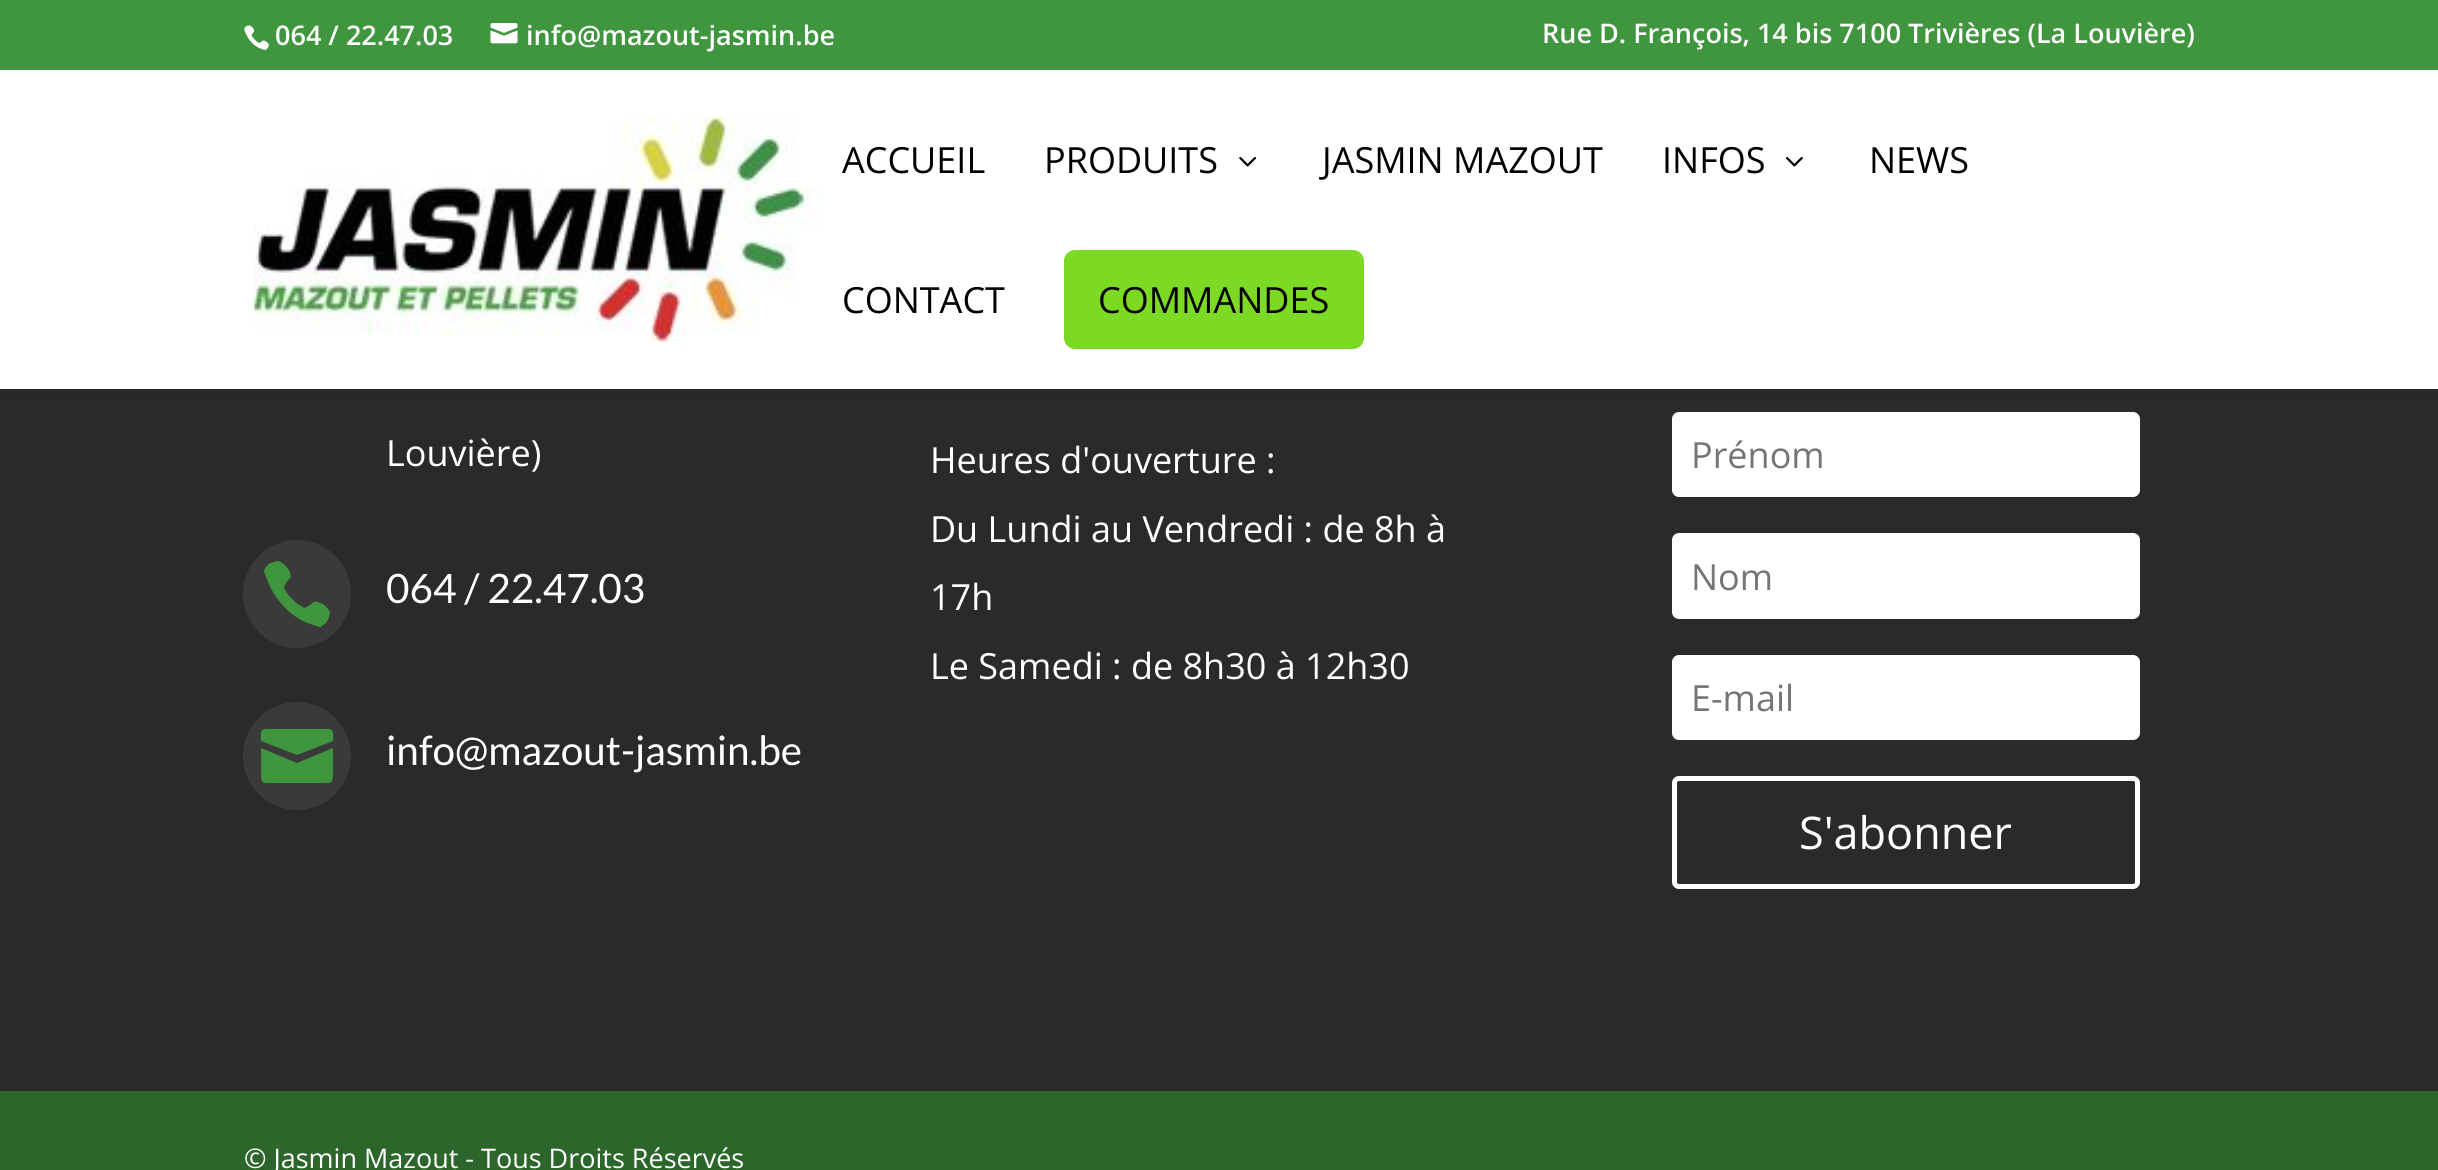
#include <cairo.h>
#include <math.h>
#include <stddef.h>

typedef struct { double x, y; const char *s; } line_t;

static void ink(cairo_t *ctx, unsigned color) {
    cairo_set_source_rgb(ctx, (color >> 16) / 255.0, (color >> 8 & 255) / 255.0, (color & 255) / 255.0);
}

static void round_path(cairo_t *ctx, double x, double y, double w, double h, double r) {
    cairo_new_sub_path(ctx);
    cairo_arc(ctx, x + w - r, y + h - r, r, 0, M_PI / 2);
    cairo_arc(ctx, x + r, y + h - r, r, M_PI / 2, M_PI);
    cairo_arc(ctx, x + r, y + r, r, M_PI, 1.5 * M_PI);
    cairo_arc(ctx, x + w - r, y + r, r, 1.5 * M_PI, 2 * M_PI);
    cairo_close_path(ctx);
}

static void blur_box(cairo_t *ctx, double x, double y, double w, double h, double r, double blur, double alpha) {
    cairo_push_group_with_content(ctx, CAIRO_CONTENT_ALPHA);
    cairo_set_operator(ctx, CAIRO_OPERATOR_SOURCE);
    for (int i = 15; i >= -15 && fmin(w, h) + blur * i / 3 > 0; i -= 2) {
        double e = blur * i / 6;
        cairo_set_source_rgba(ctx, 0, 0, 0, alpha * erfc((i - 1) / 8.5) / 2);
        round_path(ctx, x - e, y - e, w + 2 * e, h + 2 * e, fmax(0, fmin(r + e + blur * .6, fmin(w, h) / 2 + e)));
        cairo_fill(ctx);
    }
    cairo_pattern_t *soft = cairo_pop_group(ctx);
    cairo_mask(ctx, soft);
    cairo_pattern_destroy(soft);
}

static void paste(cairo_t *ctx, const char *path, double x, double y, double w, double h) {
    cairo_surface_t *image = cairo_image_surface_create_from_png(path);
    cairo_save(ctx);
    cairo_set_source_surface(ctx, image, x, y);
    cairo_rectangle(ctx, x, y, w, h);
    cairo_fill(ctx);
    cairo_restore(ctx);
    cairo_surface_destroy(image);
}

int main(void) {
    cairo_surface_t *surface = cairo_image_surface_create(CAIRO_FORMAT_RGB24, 2438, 1170);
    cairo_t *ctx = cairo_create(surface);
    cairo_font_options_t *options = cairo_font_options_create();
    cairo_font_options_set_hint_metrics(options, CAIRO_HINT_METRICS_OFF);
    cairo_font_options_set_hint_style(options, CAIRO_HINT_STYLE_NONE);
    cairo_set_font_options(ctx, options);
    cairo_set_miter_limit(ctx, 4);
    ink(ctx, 0x2C662B);
    cairo_paint(ctx);
    ink(ctx, 0x2A2A2A);
    cairo_rectangle(ctx, 0, 389, 2438, 702);
    cairo_fill(ctx);
    ink(ctx, 0xFFFFFF);
    round_path(ctx, 1672, 412, 468, 85, 7);
    cairo_fill(ctx);
    ink(ctx, 0x000000);
    blur_box(ctx, 0, 70, 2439, 319, 0, 8, 0.1);
    ink(ctx, 0x40963F);
    cairo_rectangle(ctx, 0, 0, 2438, 70);
    cairo_fill(ctx);
    paste(ctx, "media/1.png", 244, 25, 25, 26);
    cairo_select_font_face(ctx, "Open Sans SemiBold", CAIRO_FONT_SLANT_NORMAL, CAIRO_FONT_WEIGHT_NORMAL);
    cairo_set_font_size(ctx, 27);
    ink(ctx, 0xFFFFFF);
    cairo_move_to(ctx, 275, 45);
    cairo_show_text(ctx, "064 / 22.47.03");
    paste(ctx, "media/2.png", 490, 23, 28, 21);
    cairo_move_to(ctx, 526, 45);
    cairo_show_text(ctx, "info@mazout-jasmin.be");
    cairo_move_to(ctx, 1542, 43);
    cairo_show_text(ctx, "Rue D. François, 14 bis 7100 Trivières (La Louvière)");
    cairo_rectangle(ctx, 0, 70, 2438, 319);
    cairo_fill(ctx);
    paste(ctx, "media/3.png", 254, 117, 570, 225);
    cairo_select_font_face(ctx, "Open Sans", CAIRO_FONT_SLANT_NORMAL, CAIRO_FONT_WEIGHT_NORMAL);
    cairo_set_font_size(ctx, 36);
    ink(ctx, 0x000000);
    cairo_move_to(ctx, 842, 173);
    cairo_show_text(ctx, "ACCUEIL");
    cairo_move_to(ctx, 1044, 173);
    cairo_show_text(ctx, "PRODUITS");
    paste(ctx, "media/4.png", 1239, 157, 17, 10);
    cairo_move_to(ctx, 1322, 173);
    cairo_show_text(ctx, "JASMIN MAZOUT");
    cairo_move_to(ctx, 1662, 173);
    cairo_show_text(ctx, "INFOS");
    paste(ctx, "media/5.png", 1786, 157, 17, 10);
    cairo_move_to(ctx, 1869, 173);
    cairo_show_text(ctx, "NEWS");
    cairo_move_to(ctx, 842, 313);
    cairo_show_text(ctx, "CONTACT");
    ink(ctx, 0x7CDA24);
    round_path(ctx, 1064, 250, 300, 99, 11);
    cairo_fill(ctx);
    ink(ctx, 0x000000);
    cairo_move_to(ctx, 1098, 313);
    cairo_show_text(ctx, "COMMANDES");
    ink(ctx, 0xFFFFFF);
    cairo_move_to(ctx, 386, 466);
    cairo_show_text(ctx, "Louvière)");
    ink(ctx, 0x3A3A3A);
    cairo_new_path(ctx);
    cairo_arc(ctx, 297, 594, 54, 0, 2 * M_PI);
    cairo_fill(ctx);
    paste(ctx, "media/6.png", 264, 561, 66, 66);
    cairo_select_font_face(ctx, "Lato", CAIRO_FONT_SLANT_NORMAL, CAIRO_FONT_WEIGHT_NORMAL);
    cairo_set_font_size(ctx, 40.5);
    ink(ctx, 0xFFFFFF);
    cairo_move_to(ctx, 386, 603);
    cairo_show_text(ctx, "064 / 22.47.03");
    ink(ctx, 0x3A3A3A);
    cairo_new_path(ctx);
    cairo_arc(ctx, 297, 756, 54, 0, 2 * M_PI);
    cairo_fill(ctx);
    ink(ctx, 0x40963F);
    cairo_new_path(ctx);
    cairo_move_to(ctx, 328, 729);
    cairo_line_to(ctx, 266, 729);
    cairo_curve_to(ctx, 259, 729, 261, 737, 261, 741);
    cairo_line_to(ctx, 297, 755);
    cairo_line_to(ctx, 333, 741);
    cairo_curve_to(ctx, 333, 737, 335, 729, 328, 729);
    cairo_close_path(ctx);
    cairo_move_to(ctx, 261, 748);
    cairo_line_to(ctx, 261, 773);
    cairo_curve_to(ctx, 261, 785, 263, 783, 276, 783);
    cairo_line_to(ctx, 318, 783);
    cairo_curve_to(ctx, 331, 783, 333, 785, 333, 773);
    cairo_line_to(ctx, 333, 748);
    cairo_line_to(ctx, 297, 763);
    cairo_close_path(ctx);
    cairo_fill(ctx);
    ink(ctx, 0xFFFFFF);
    cairo_move_to(ctx, 386, 765);
    cairo_show_text(ctx, "info@mazout-jasmin.be");
    cairo_select_font_face(ctx, "Open Sans", CAIRO_FONT_SLANT_NORMAL, CAIRO_FONT_WEIGHT_NORMAL);
    cairo_set_font_size(ctx, 36);
    {
        static const line_t items[] = {
            {930, 473, "Heures d'ouverture :"},
            {930, 542, "Du Lundi au Vendredi : de 8h à"},
            {930, 610, "17h"},
            {930, 679, "Le Samedi : de 8h30 à 12h30"},
        };
        for (size_t i = 0; i < sizeof items / sizeof *items; i++) {
            cairo_move_to(ctx, items[i].x, items[i].y);
            cairo_show_text(ctx, items[i].s);
        }
    }
    ink(ctx, 0x757575);
    cairo_move_to(ctx, 1691, 468);
    cairo_show_text(ctx, "Prénom");
    ink(ctx, 0xFFFFFF);
    round_path(ctx, 1672, 533, 468, 86, 7);
    cairo_fill(ctx);
    ink(ctx, 0x757575);
    cairo_move_to(ctx, 1691, 590);
    cairo_show_text(ctx, "Nom");
    ink(ctx, 0xFFFFFF);
    round_path(ctx, 1672, 655, 468, 85, 7);
    cairo_fill(ctx);
    ink(ctx, 0x757575);
    cairo_move_to(ctx, 1691, 711);
    cairo_show_text(ctx, "E-mail");
    round_path(ctx, 1674.5, 778.5, 463, 108, 4.5);
    ink(ctx, 0xFFFFFF);
    cairo_set_line_width(ctx, 5);
    cairo_stroke(ctx);
    cairo_set_font_size(ctx, 45);
    cairo_move_to(ctx, 1799, 849);
    cairo_show_text(ctx, "S'abonner");
    cairo_set_font_size(ctx, 27);
    cairo_move_to(ctx, 244, 1168);
    cairo_show_text(ctx, "© Jasmin Mazout - Tous Droits Réservés");
    cairo_surface_write_to_png(surface, "image.png");
    cairo_font_options_destroy(options);
    cairo_destroy(ctx);
    cairo_surface_destroy(surface);
    return 0;
}
